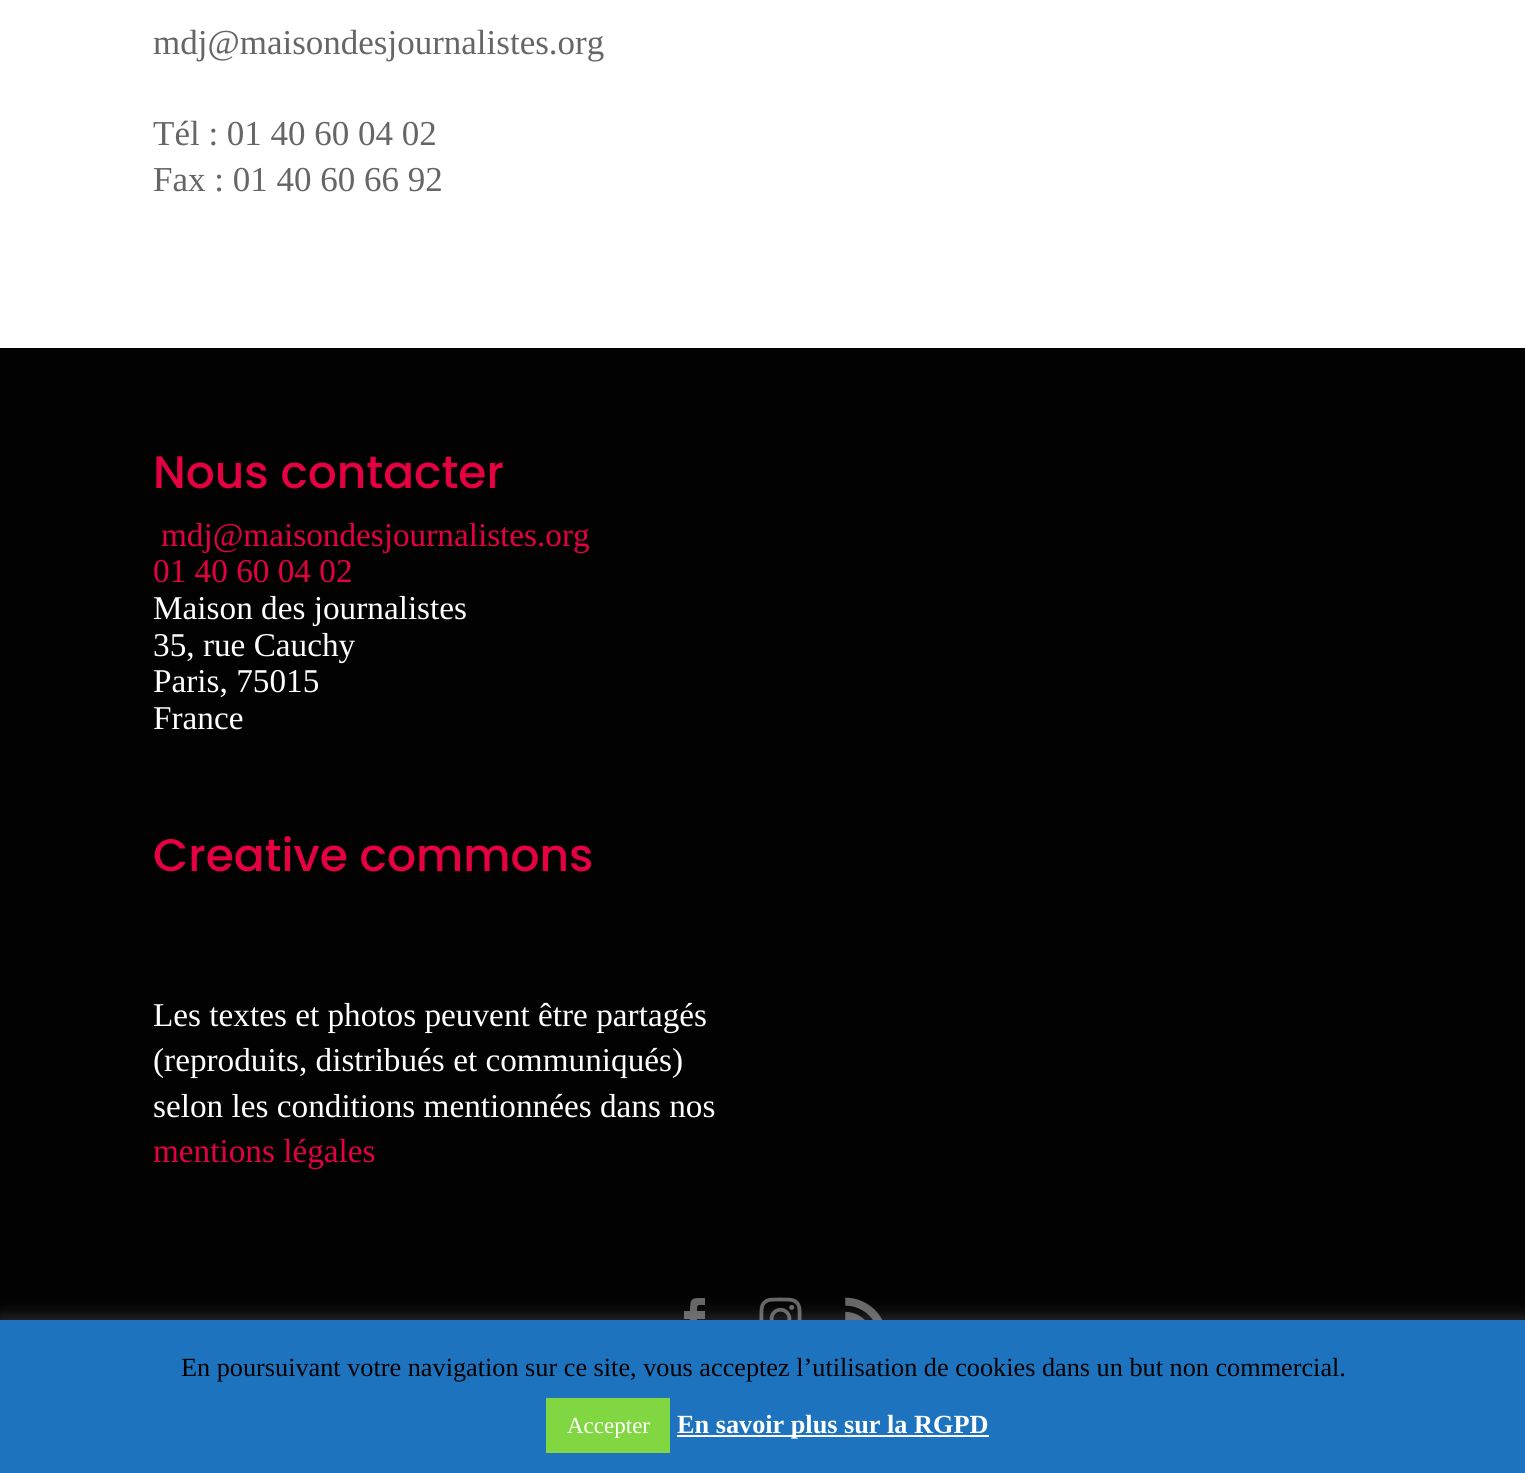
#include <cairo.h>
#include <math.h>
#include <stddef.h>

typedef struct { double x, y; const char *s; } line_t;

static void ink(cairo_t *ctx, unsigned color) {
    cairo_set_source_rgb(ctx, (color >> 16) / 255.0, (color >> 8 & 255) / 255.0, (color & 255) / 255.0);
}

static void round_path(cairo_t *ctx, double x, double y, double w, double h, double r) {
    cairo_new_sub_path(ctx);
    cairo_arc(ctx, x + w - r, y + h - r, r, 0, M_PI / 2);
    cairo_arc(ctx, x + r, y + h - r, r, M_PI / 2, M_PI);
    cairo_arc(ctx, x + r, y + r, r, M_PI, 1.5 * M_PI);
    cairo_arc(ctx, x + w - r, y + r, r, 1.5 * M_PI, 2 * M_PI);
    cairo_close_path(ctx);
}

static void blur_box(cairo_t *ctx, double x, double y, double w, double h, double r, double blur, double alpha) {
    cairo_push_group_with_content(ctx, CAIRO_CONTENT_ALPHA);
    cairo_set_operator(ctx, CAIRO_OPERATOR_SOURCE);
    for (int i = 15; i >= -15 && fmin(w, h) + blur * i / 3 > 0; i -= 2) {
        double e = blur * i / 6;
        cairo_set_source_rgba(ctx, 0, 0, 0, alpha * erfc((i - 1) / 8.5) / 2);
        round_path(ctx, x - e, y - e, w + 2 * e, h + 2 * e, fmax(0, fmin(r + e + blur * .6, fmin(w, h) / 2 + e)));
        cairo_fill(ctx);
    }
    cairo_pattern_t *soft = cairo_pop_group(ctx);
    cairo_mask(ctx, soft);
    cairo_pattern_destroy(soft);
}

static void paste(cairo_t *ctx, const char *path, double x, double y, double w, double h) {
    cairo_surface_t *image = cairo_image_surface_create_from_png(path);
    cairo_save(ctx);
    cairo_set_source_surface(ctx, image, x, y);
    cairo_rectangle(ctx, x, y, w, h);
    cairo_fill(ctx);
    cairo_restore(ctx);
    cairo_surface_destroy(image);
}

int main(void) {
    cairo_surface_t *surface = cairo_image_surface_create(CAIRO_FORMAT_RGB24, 1525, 1473);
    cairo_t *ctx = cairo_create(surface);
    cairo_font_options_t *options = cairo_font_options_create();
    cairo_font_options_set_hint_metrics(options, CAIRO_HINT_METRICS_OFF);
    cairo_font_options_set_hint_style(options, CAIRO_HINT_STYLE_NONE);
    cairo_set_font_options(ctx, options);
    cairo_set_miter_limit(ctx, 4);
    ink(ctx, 0xFFFFFF);
    cairo_paint(ctx);
    cairo_select_font_face(ctx, "Liberation Serif", CAIRO_FONT_SLANT_NORMAL, CAIRO_FONT_WEIGHT_NORMAL);
    cairo_set_font_size(ctx, 35);
    ink(ctx, 0x666666);
    {
        static const line_t items[] = {
            {153, 54, "mdj@maisondesjournalistes.org"},
            {153, 145, "Tél : 01 40 60 04 02"},
            {153, 191, "Fax : 01 40 60 66 92"},
        };
        for (size_t i = 0; i < sizeof items / sizeof *items; i++) {
            cairo_move_to(ctx, items[i].x, items[i].y);
            cairo_show_text(ctx, items[i].s);
        }
    }
    ink(ctx, 0x020202);
    cairo_rectangle(ctx, 0, 348, 1525, 972);
    cairo_fill(ctx);
    cairo_select_font_face(ctx, "Poppins Medium", CAIRO_FONT_SLANT_NORMAL, CAIRO_FONT_WEIGHT_NORMAL);
    cairo_set_font_size(ctx, 45.5);
    ink(ctx, 0xE40041);
    cairo_move_to(ctx, 153, 488);
    cairo_show_text(ctx, "Nous contacter");
    cairo_select_font_face(ctx, "Liberation Serif", CAIRO_FONT_SLANT_NORMAL, CAIRO_FONT_WEIGHT_NORMAL);
    cairo_set_font_size(ctx, 33.25);
    cairo_move_to(ctx, 161, 546);
    cairo_show_text(ctx, "mdj@maisondesjournalistes.org");
    cairo_move_to(ctx, 153, 582);
    cairo_show_text(ctx, "01 40 60 04 02");
    ink(ctx, 0xFFFFFF);
    {
        static const line_t items[] = {
            {153, 619, "Maison des journalistes"},
            {153, 656, "35, rue Cauchy"},
            {153, 692, "Paris, 75015"},
            {153, 729, "France"},
        };
        for (size_t i = 0; i < sizeof items / sizeof *items; i++) {
            cairo_move_to(ctx, items[i].x, items[i].y);
            cairo_show_text(ctx, items[i].s);
        }
    }
    cairo_select_font_face(ctx, "Poppins Medium", CAIRO_FONT_SLANT_NORMAL, CAIRO_FONT_WEIGHT_NORMAL);
    cairo_set_font_size(ctx, 45.5);
    ink(ctx, 0xE40041);
    cairo_move_to(ctx, 153, 871);
    cairo_show_text(ctx, "Creative commons");
    cairo_select_font_face(ctx, "Liberation Serif", CAIRO_FONT_SLANT_NORMAL, CAIRO_FONT_WEIGHT_NORMAL);
    cairo_set_font_size(ctx, 33.25);
    ink(ctx, 0xFFFFFF);
    {
        static const line_t items[] = {
            {153, 1026, "Les textes et photos peuvent être partagés"},
            {153, 1071, "(reproduits, distribués et communiqués)"},
            {153, 1117, "selon les conditions mentionnées dans nos"},
        };
        for (size_t i = 0; i < sizeof items / sizeof *items; i++) {
            cairo_move_to(ctx, items[i].x, items[i].y);
            cairo_show_text(ctx, items[i].s);
        }
    }
    ink(ctx, 0xE40041);
    cairo_move_to(ctx, 153, 1162);
    cairo_show_text(ctx, "mentions légales");
    ink(ctx, 0x666666);
    cairo_new_path(ctx);
    cairo_move_to(ctx, 690, 1340);
    cairo_line_to(ctx, 697, 1340);
    cairo_line_to(ctx, 697, 1319);
    cairo_line_to(ctx, 705, 1319);
    cairo_line_to(ctx, 705, 1311);
    cairo_line_to(ctx, 697, 1311);
    cairo_curve_to(ctx, 697, 1304, 697, 1305, 705, 1305);
    cairo_line_to(ctx, 705, 1298);
    cairo_curve_to(ctx, 692, 1298, 690, 1297, 690, 1311);
    cairo_line_to(ctx, 684, 1311);
    cairo_line_to(ctx, 684, 1319);
    cairo_line_to(ctx, 690, 1319);
    cairo_close_path(ctx);
    cairo_fill(ctx);
    paste(ctx, "media/1.png", 759, 1297, 43, 23);
    paste(ctx, "media/2.png", 845, 1297, 38, 23);
    ink(ctx, 0xACABAB);
    blur_box(ctx, 0, 1318, 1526, 154, 0, 9, 0.3);
    ink(ctx, 0x1E73BE);
    cairo_rectangle(ctx, 0, 1320, 1525, 153);
    cairo_fill(ctx);
    cairo_set_font_size(ctx, 26.25);
    ink(ctx, 0x000000);
    cairo_move_to(ctx, 181, 1376);
    cairo_show_text(ctx, "En poursuivant votre navigation sur ce site, vous acceptez l’utilisation de cookies dans un but non commercial.");
    ink(ctx, 0x81D742);
    cairo_rectangle(ctx, 546, 1398, 124, 55);
    cairo_fill(ctx);
    cairo_set_font_size(ctx, 23);
    ink(ctx, 0xFFFFFF);
    cairo_move_to(ctx, 567, 1433);
    cairo_show_text(ctx, "Accepter");
    cairo_rectangle(ctx, 677, 1435, 312, 2);
    cairo_fill(ctx);
    cairo_select_font_face(ctx, "Liberation Serif", CAIRO_FONT_SLANT_NORMAL, CAIRO_FONT_WEIGHT_BOLD);
    cairo_set_font_size(ctx, 26.25);
    cairo_move_to(ctx, 677, 1433);
    cairo_show_text(ctx, "En savoir plus sur la RGPD");
    cairo_surface_write_to_png(surface, "image.png");
    cairo_font_options_destroy(options);
    cairo_destroy(ctx);
    cairo_surface_destroy(surface);
    return 0;
}
